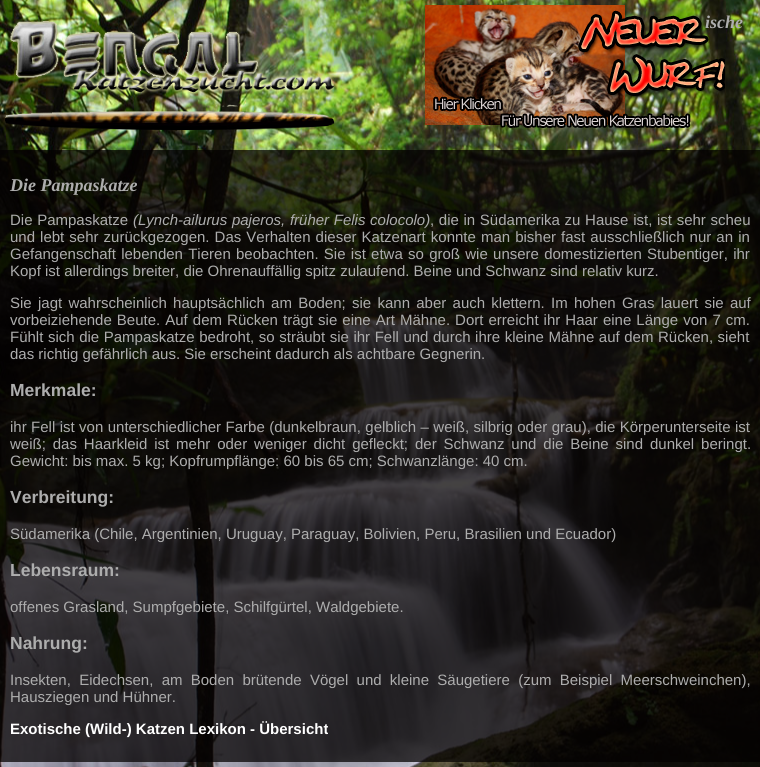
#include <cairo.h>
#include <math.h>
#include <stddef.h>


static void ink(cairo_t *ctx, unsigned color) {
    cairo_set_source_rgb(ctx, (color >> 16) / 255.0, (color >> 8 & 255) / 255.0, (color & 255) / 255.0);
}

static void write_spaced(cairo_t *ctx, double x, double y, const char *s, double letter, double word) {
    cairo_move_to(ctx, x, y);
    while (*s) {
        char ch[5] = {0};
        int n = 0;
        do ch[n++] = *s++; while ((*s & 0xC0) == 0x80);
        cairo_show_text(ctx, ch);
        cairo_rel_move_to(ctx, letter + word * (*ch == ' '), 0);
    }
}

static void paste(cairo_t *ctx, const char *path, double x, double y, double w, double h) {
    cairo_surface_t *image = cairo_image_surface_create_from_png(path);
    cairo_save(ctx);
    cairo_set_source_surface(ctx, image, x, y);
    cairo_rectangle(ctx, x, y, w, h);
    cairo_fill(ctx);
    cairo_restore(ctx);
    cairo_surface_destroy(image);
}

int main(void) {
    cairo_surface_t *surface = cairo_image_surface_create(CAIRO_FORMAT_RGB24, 760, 767);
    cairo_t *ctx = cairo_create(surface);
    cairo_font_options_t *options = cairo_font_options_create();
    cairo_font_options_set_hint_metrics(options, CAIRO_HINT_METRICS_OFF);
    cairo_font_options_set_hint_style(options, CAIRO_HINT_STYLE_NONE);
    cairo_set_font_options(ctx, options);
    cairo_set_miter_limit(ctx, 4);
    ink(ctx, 0xFFFFFF);
    cairo_paint(ctx);
    paste(ctx, "media/1.png", 0, 0, 760, 12);
    paste(ctx, "media/2.png", 0, 12, 760, 755);
    cairo_select_font_face(ctx, "Liberation Serif", CAIRO_FONT_SLANT_ITALIC, CAIRO_FONT_WEIGHT_BOLD);
    cairo_set_font_size(ctx, 18);
    ink(ctx, 0xADADAD);
    cairo_move_to(ctx, 705, 28);
    cairo_show_text(ctx, "ische");
    paste(ctx, "media/3.png", 425, 5, 300, 123);
    paste(ctx, "media/4.png", 5, 20, 329, 110);
    cairo_set_source_rgba(ctx, 0.012, 0, 0.004, 0.74);
    cairo_rectangle(ctx, 0, 150, 760, 612);
    cairo_fill(ctx);
    ink(ctx, 0xADADAD);
    cairo_move_to(ctx, 10, 191);
    cairo_show_text(ctx, "Die Pampaskatze");
    cairo_select_font_face(ctx, "Liberation Sans", CAIRO_FONT_SLANT_NORMAL, CAIRO_FONT_WEIGHT_NORMAL);
    cairo_set_font_size(ctx, 15);
    write_spaced(ctx, 10, 225, "Die Pampaskatze", 0, 0.5);
    cairo_select_font_face(ctx, "Liberation Sans", CAIRO_FONT_SLANT_ITALIC, CAIRO_FONT_WEIGHT_NORMAL);
    write_spaced(ctx, 133, 225, "(Lynch-ailurus pajeros, früher Felis colocolo)", 0, 0.5);
    cairo_select_font_face(ctx, "Liberation Sans", CAIRO_FONT_SLANT_NORMAL, CAIRO_FONT_WEIGHT_NORMAL);
    write_spaced(ctx, 430, 225, ", die in Südamerika zu Hause ist, ist sehr scheu", 0, 0.5);
    write_spaced(ctx, 10, 242, "und lebt sehr zurückgezogen. Das Verhalten dieser Katzenart konnte man bisher fast ausschließlich nur an in", 0, 0.9);
    write_spaced(ctx, 10, 259, "Gefangenschaft lebenden Tieren beobachten. Sie ist etwa so groß wie unsere domestizierten Stubentiger, ihr", 0, 1.1);
    cairo_move_to(ctx, 10, 276);
    cairo_show_text(ctx, "Kopf ist allerdings breiter, die Ohrenauffällig spitz zulaufend. Beine und Schwanz sind relativ kurz.");
    write_spaced(ctx, 10, 308, "Sie jagt wahrscheinlich hauptsächlich am Boden; sie kann aber auch klettern. Im hohen Gras lauert sie auf", 0, 2.1);
    write_spaced(ctx, 10, 325, "vorbeiziehende Beute. Auf dem Rücken trägt sie eine Art Mähne. Dort erreicht ihr Haar eine Länge von 7 cm.", 0, 0.9);
    write_spaced(ctx, 10, 342, "Fühlt sich die Pampaskatze bedroht, so sträubt sie ihr Fell und durch ihre kleine Mähne auf dem Rücken, sieht", 0, 0.4);
    cairo_move_to(ctx, 10, 359);
    cairo_show_text(ctx, "das richtig gefährlich aus. Sie erscheint dadurch als achtbare Gegnerin.");
    cairo_select_font_face(ctx, "Liberation Sans", CAIRO_FONT_SLANT_NORMAL, CAIRO_FONT_WEIGHT_BOLD);
    cairo_set_font_size(ctx, 17.5);
    cairo_move_to(ctx, 10, 396);
    cairo_show_text(ctx, "Merkmale:");
    cairo_select_font_face(ctx, "Liberation Sans", CAIRO_FONT_SLANT_NORMAL, CAIRO_FONT_WEIGHT_NORMAL);
    cairo_set_font_size(ctx, 15);
    write_spaced(ctx, 10, 432, "ihr Fell ist von unterschiedlicher Farbe (dunkelbraun, gelblich – weiß, silbrig oder grau), die Körperunterseite ist", 0, 0.25);
    write_spaced(ctx, 10, 449, "weiß; das Haarkleid ist mehr oder weniger dicht gefleckt; der Schwanz und die Beine sind dunkel beringt.", 0, 2.75);
    cairo_move_to(ctx, 10, 466);
    cairo_show_text(ctx, "Gewicht: bis max. 5 kg; Kopfrumpflänge: 60 bis 65 cm; Schwanzlänge: 40 cm.");
    cairo_select_font_face(ctx, "Liberation Sans", CAIRO_FONT_SLANT_NORMAL, CAIRO_FONT_WEIGHT_BOLD);
    cairo_set_font_size(ctx, 17.5);
    cairo_move_to(ctx, 10, 503);
    cairo_show_text(ctx, "Verbreitung:");
    cairo_select_font_face(ctx, "Liberation Sans", CAIRO_FONT_SLANT_NORMAL, CAIRO_FONT_WEIGHT_NORMAL);
    cairo_set_font_size(ctx, 15);
    cairo_move_to(ctx, 10, 539);
    cairo_show_text(ctx, "Südamerika (Chile, Argentinien, Uruguay, Paraguay, Bolivien, Peru, Brasilien und Ecuador)");
    cairo_select_font_face(ctx, "Liberation Sans", CAIRO_FONT_SLANT_NORMAL, CAIRO_FONT_WEIGHT_BOLD);
    cairo_set_font_size(ctx, 17.5);
    cairo_move_to(ctx, 10, 576);
    cairo_show_text(ctx, "Lebensraum:");
    cairo_select_font_face(ctx, "Liberation Sans", CAIRO_FONT_SLANT_NORMAL, CAIRO_FONT_WEIGHT_NORMAL);
    cairo_set_font_size(ctx, 15);
    cairo_move_to(ctx, 10, 612);
    cairo_show_text(ctx, "offenes Grasland, Sumpfgebiete, Schilfgürtel, Waldgebiete.");
    cairo_select_font_face(ctx, "Liberation Sans", CAIRO_FONT_SLANT_NORMAL, CAIRO_FONT_WEIGHT_BOLD);
    cairo_set_font_size(ctx, 17.5);
    cairo_move_to(ctx, 10, 649);
    cairo_show_text(ctx, "Nahrung:");
    cairo_select_font_face(ctx, "Liberation Sans", CAIRO_FONT_SLANT_NORMAL, CAIRO_FONT_WEIGHT_NORMAL);
    cairo_set_font_size(ctx, 15);
    write_spaced(ctx, 10, 685, "Insekten, Eidechsen, am Boden brütende Vögel und kleine Säugetiere (zum Beispiel Meerschweinchen),", 0, 4.1);
    cairo_move_to(ctx, 10, 702);
    cairo_show_text(ctx, "Hausziegen und Hühner.");
    cairo_select_font_face(ctx, "Liberation Sans", CAIRO_FONT_SLANT_NORMAL, CAIRO_FONT_WEIGHT_BOLD);
    ink(ctx, 0xFFFFFF);
    cairo_move_to(ctx, 10, 734);
    cairo_show_text(ctx, "Exotische (Wild-) Katzen Lexikon - Übersicht");
    cairo_surface_write_to_png(surface, "image.png");
    cairo_font_options_destroy(options);
    cairo_destroy(ctx);
    cairo_surface_destroy(surface);
    return 0;
}
